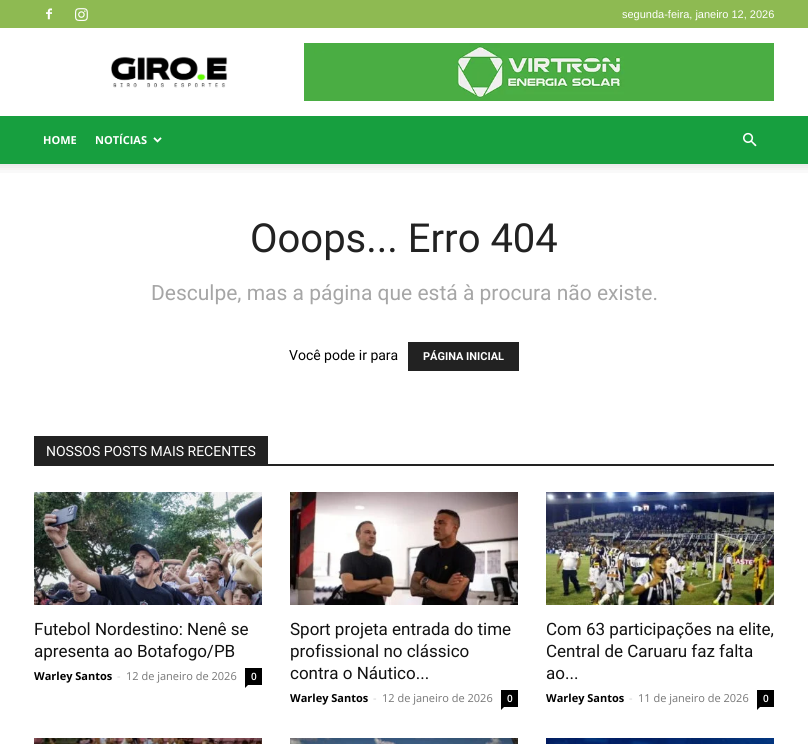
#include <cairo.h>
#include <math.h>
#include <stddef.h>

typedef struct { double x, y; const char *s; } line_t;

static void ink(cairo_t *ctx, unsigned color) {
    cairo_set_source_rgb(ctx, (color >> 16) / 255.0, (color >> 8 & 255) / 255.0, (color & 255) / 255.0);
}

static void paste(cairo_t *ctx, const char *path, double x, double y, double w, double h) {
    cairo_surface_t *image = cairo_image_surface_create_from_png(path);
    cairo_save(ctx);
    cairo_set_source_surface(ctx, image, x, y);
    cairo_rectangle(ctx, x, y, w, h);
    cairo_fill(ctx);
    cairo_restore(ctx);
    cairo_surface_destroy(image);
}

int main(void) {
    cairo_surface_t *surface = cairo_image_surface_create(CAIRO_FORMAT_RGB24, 808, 744);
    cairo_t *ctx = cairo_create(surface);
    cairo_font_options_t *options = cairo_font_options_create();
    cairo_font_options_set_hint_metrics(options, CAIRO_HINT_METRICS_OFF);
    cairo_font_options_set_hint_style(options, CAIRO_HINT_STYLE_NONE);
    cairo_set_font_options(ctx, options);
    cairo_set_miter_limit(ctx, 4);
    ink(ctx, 0xFFFFFF);
    cairo_paint(ctx);
    ink(ctx, 0x8EBA52);
    cairo_rectangle(ctx, 0, 0, 808, 28);
    cairo_fill(ctx);
    paste(ctx, "media/1.png", 46, 8, 6, 12);
    paste(ctx, "media/2.png", 75, 8, 13, 13);
    cairo_select_font_face(ctx, "Liberation Sans", CAIRO_FONT_SLANT_NORMAL, CAIRO_FONT_WEIGHT_NORMAL);
    cairo_set_font_size(ctx, 11);
    ink(ctx, 0xFFFFFF);
    cairo_move_to(ctx, 622, 18);
    cairo_show_text(ctx, "segunda-feira, janeiro 12, 2026");
    paste(ctx, "media/3.png", 111, 56, 117, 32);
    paste(ctx, "media/4.png", 304, 43, 470, 58);
    ink(ctx, 0x179F3F);
    cairo_rectangle(ctx, 0, 116, 808, 48);
    cairo_fill(ctx);
    cairo_select_font_face(ctx, "Open Sans", CAIRO_FONT_SLANT_NORMAL, CAIRO_FONT_WEIGHT_BOLD);
    ink(ctx, 0xFFFFFF);
    cairo_move_to(ctx, 43, 144);
    cairo_show_text(ctx, "HOME");
    cairo_move_to(ctx, 95, 144);
    cairo_show_text(ctx, "NOTÍCIAS");
    paste(ctx, "media/5.png", 153, 137, 9, 6);
    paste(ctx, "media/6.png", 743, 132, 14, 15);
    paste(ctx, "media/7.png", 0, 164, 808, 9);
    cairo_select_font_face(ctx, "Roboto", CAIRO_FONT_SLANT_NORMAL, CAIRO_FONT_WEIGHT_NORMAL);
    cairo_set_font_size(ctx, 40);
    ink(ctx, 0x222222);
    cairo_move_to(ctx, 250, 252);
    cairo_show_text(ctx, "Ooops... Erro 404");
    cairo_set_font_size(ctx, 21);
    ink(ctx, 0xA6A6A6);
    cairo_move_to(ctx, 151, 300);
    cairo_show_text(ctx, "Desculpe, mas a página que está à procura não existe.");
    cairo_set_font_size(ctx, 14);
    ink(ctx, 0x000000);
    cairo_move_to(ctx, 289, 360);
    cairo_show_text(ctx, "Você pode ir para");
    ink(ctx, 0x222222);
    cairo_rectangle(ctx, 408, 342, 111, 29);
    cairo_fill(ctx);
    cairo_select_font_face(ctx, "Roboto", CAIRO_FONT_SLANT_NORMAL, CAIRO_FONT_WEIGHT_BOLD);
    cairo_set_font_size(ctx, 11);
    ink(ctx, 0xFFFFFF);
    cairo_move_to(ctx, 423, 360);
    cairo_show_text(ctx, "PÁGINA INICIAL");
    ink(ctx, 0x222222);
    cairo_rectangle(ctx, 34, 464, 740, 2);
    cairo_fill(ctx);
    cairo_rectangle(ctx, 34, 436, 234, 28);
    cairo_fill(ctx);
    cairo_select_font_face(ctx, "Roboto", CAIRO_FONT_SLANT_NORMAL, CAIRO_FONT_WEIGHT_NORMAL);
    cairo_set_font_size(ctx, 14);
    ink(ctx, 0xFFFFFF);
    cairo_move_to(ctx, 46, 456);
    cairo_show_text(ctx, "NOSSOS POSTS MAIS RECENTES");
    paste(ctx, "media/8.png", 34, 492, 228, 113);
    cairo_set_font_size(ctx, 17);
    ink(ctx, 0x111111);
    cairo_move_to(ctx, 34, 635);
    cairo_show_text(ctx, "Futebol Nordestino: Nenê se");
    cairo_move_to(ctx, 34, 657);
    cairo_show_text(ctx, "apresenta ao Botafogo/PB");
    cairo_select_font_face(ctx, "Open Sans", CAIRO_FONT_SLANT_NORMAL, CAIRO_FONT_WEIGHT_BOLD);
    cairo_set_font_size(ctx, 11);
    ink(ctx, 0x000000);
    cairo_move_to(ctx, 34, 680);
    cairo_show_text(ctx, "Warley Santos");
    cairo_select_font_face(ctx, "Open Sans", CAIRO_FONT_SLANT_NORMAL, CAIRO_FONT_WEIGHT_NORMAL);
    ink(ctx, 0xCCCCCC);
    cairo_move_to(ctx, 117, 680);
    cairo_show_text(ctx, "-");
    ink(ctx, 0x767676);
    cairo_move_to(ctx, 126, 680);
    cairo_show_text(ctx, "12 de janeiro de 2026");
    ink(ctx, 0x000000);
    cairo_rectangle(ctx, 245, 668, 17, 17);
    cairo_fill(ctx);
    cairo_select_font_face(ctx, "Open Sans SemiBold", CAIRO_FONT_SLANT_NORMAL, CAIRO_FONT_WEIGHT_NORMAL);
    cairo_set_font_size(ctx, 10);
    ink(ctx, 0xFFFFFF);
    cairo_move_to(ctx, 251, 680);
    cairo_show_text(ctx, "0");
    ink(ctx, 0x000000);
    cairo_new_path(ctx);
    cairo_move_to(ctx, 245, 685);
    cairo_line_to(ctx, 248, 685);
    cairo_line_to(ctx, 245, 688);
    cairo_close_path(ctx);
    cairo_fill(ctx);
    paste(ctx, "media/9.png", 290, 492, 228, 113);
    cairo_select_font_face(ctx, "Roboto", CAIRO_FONT_SLANT_NORMAL, CAIRO_FONT_WEIGHT_NORMAL);
    cairo_set_font_size(ctx, 17);
    ink(ctx, 0x111111);
    {
        static const line_t items[] = {
            {290, 635, "Sport projeta entrada do time"},
            {290, 657, "profissional no clássico"},
            {290, 679, "contra o Náutico..."},
        };
        for (size_t i = 0; i < sizeof items / sizeof *items; i++) {
            cairo_move_to(ctx, items[i].x, items[i].y);
            cairo_show_text(ctx, items[i].s);
        }
    }
    cairo_select_font_face(ctx, "Open Sans", CAIRO_FONT_SLANT_NORMAL, CAIRO_FONT_WEIGHT_BOLD);
    cairo_set_font_size(ctx, 11);
    ink(ctx, 0x000000);
    cairo_move_to(ctx, 290, 702);
    cairo_show_text(ctx, "Warley Santos");
    cairo_select_font_face(ctx, "Open Sans", CAIRO_FONT_SLANT_NORMAL, CAIRO_FONT_WEIGHT_NORMAL);
    ink(ctx, 0xCCCCCC);
    cairo_move_to(ctx, 373, 702);
    cairo_show_text(ctx, "-");
    ink(ctx, 0x767676);
    cairo_move_to(ctx, 382, 702);
    cairo_show_text(ctx, "12 de janeiro de 2026");
    ink(ctx, 0x000000);
    cairo_rectangle(ctx, 501, 690, 17, 17);
    cairo_fill(ctx);
    cairo_select_font_face(ctx, "Open Sans SemiBold", CAIRO_FONT_SLANT_NORMAL, CAIRO_FONT_WEIGHT_NORMAL);
    cairo_set_font_size(ctx, 10);
    ink(ctx, 0xFFFFFF);
    cairo_move_to(ctx, 507, 702);
    cairo_show_text(ctx, "0");
    ink(ctx, 0x000000);
    cairo_new_path(ctx);
    cairo_move_to(ctx, 501, 707);
    cairo_line_to(ctx, 504, 707);
    cairo_line_to(ctx, 501, 710);
    cairo_close_path(ctx);
    cairo_fill(ctx);
    paste(ctx, "media/10.png", 546, 492, 228, 113);
    cairo_select_font_face(ctx, "Roboto", CAIRO_FONT_SLANT_NORMAL, CAIRO_FONT_WEIGHT_NORMAL);
    cairo_set_font_size(ctx, 17);
    ink(ctx, 0x111111);
    {
        static const line_t items[] = {
            {546, 635, "Com 63 participações na elite,"},
            {546, 657, "Central de Caruaru faz falta"},
            {546, 679, "ao..."},
        };
        for (size_t i = 0; i < sizeof items / sizeof *items; i++) {
            cairo_move_to(ctx, items[i].x, items[i].y);
            cairo_show_text(ctx, items[i].s);
        }
    }
    cairo_select_font_face(ctx, "Open Sans", CAIRO_FONT_SLANT_NORMAL, CAIRO_FONT_WEIGHT_BOLD);
    cairo_set_font_size(ctx, 11);
    ink(ctx, 0x000000);
    cairo_move_to(ctx, 546, 702);
    cairo_show_text(ctx, "Warley Santos");
    cairo_select_font_face(ctx, "Open Sans", CAIRO_FONT_SLANT_NORMAL, CAIRO_FONT_WEIGHT_NORMAL);
    ink(ctx, 0xCCCCCC);
    cairo_move_to(ctx, 629, 702);
    cairo_show_text(ctx, "-");
    ink(ctx, 0x767676);
    cairo_move_to(ctx, 638, 702);
    cairo_show_text(ctx, "11 de janeiro de 2026");
    ink(ctx, 0x000000);
    cairo_rectangle(ctx, 757, 690, 17, 17);
    cairo_fill(ctx);
    cairo_select_font_face(ctx, "Open Sans SemiBold", CAIRO_FONT_SLANT_NORMAL, CAIRO_FONT_WEIGHT_NORMAL);
    cairo_set_font_size(ctx, 10);
    ink(ctx, 0xFFFFFF);
    cairo_move_to(ctx, 763, 702);
    cairo_show_text(ctx, "0");
    ink(ctx, 0x000000);
    cairo_new_path(ctx);
    cairo_move_to(ctx, 757, 707);
    cairo_line_to(ctx, 760, 707);
    cairo_line_to(ctx, 757, 710);
    cairo_close_path(ctx);
    cairo_fill(ctx);
    paste(ctx, "media/11.png", 34, 738, 228, 6);
    paste(ctx, "media/12.png", 290, 738, 228, 6);
    paste(ctx, "media/13.png", 546, 738, 228, 6);
    cairo_surface_write_to_png(surface, "image.png");
    cairo_font_options_destroy(options);
    cairo_destroy(ctx);
    cairo_surface_destroy(surface);
    return 0;
}
